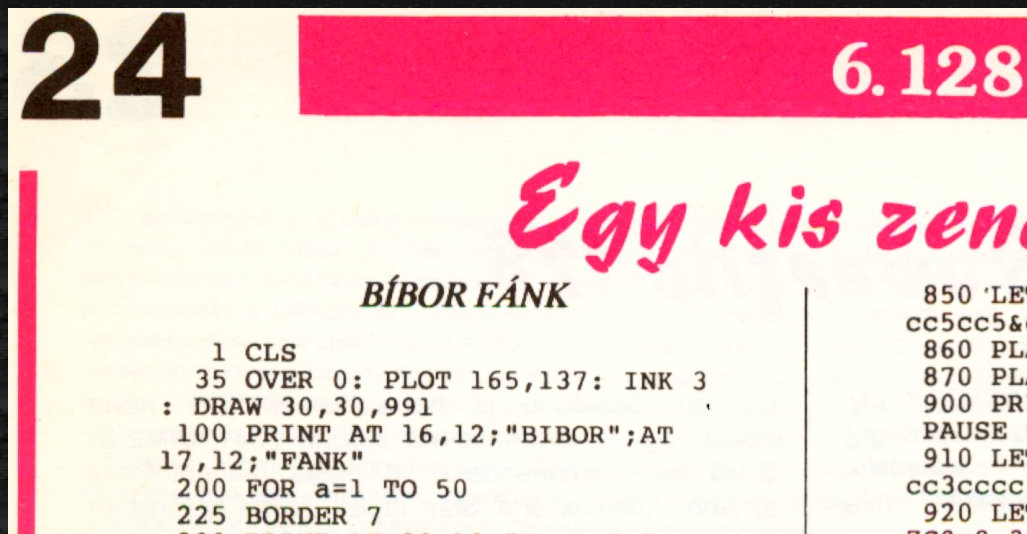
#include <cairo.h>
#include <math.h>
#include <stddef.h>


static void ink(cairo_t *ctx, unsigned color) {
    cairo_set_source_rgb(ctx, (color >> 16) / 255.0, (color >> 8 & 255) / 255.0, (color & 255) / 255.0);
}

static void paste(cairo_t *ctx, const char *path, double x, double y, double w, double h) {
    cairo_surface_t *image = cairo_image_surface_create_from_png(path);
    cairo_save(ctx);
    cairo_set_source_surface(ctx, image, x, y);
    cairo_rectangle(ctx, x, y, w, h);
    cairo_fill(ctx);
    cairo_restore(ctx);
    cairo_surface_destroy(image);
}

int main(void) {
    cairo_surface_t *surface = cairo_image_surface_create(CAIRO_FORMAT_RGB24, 1027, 534);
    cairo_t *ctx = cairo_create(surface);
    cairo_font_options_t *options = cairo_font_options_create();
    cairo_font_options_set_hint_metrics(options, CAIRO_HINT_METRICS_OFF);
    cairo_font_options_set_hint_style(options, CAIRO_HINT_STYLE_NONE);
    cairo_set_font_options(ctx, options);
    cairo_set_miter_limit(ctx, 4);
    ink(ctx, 0xFFFFFF);
    cairo_paint(ctx);
    paste(ctx, "media/1.png", 0, 0, 1027, 534);
    paste(ctx, "media/2.png", 8, 8, 1019, 526);
    cairo_surface_write_to_png(surface, "image.png");
    cairo_font_options_destroy(options);
    cairo_destroy(ctx);
    cairo_surface_destroy(surface);
    return 0;
}
